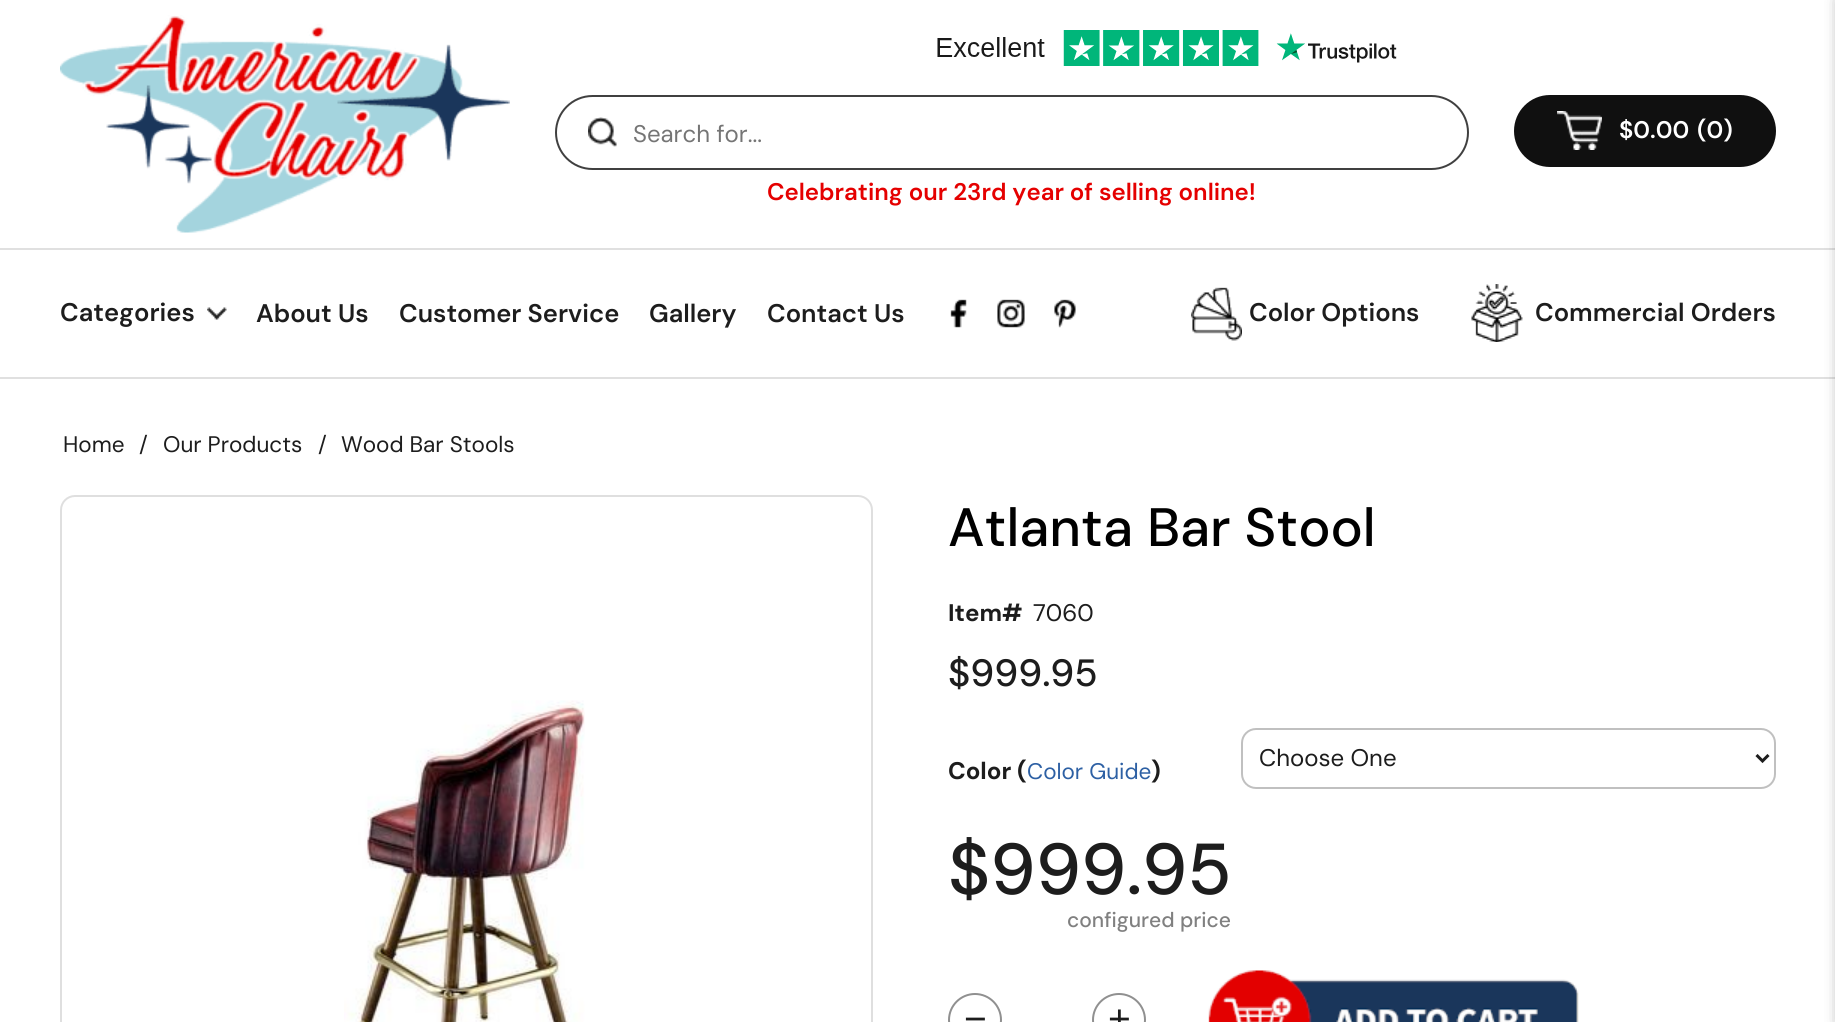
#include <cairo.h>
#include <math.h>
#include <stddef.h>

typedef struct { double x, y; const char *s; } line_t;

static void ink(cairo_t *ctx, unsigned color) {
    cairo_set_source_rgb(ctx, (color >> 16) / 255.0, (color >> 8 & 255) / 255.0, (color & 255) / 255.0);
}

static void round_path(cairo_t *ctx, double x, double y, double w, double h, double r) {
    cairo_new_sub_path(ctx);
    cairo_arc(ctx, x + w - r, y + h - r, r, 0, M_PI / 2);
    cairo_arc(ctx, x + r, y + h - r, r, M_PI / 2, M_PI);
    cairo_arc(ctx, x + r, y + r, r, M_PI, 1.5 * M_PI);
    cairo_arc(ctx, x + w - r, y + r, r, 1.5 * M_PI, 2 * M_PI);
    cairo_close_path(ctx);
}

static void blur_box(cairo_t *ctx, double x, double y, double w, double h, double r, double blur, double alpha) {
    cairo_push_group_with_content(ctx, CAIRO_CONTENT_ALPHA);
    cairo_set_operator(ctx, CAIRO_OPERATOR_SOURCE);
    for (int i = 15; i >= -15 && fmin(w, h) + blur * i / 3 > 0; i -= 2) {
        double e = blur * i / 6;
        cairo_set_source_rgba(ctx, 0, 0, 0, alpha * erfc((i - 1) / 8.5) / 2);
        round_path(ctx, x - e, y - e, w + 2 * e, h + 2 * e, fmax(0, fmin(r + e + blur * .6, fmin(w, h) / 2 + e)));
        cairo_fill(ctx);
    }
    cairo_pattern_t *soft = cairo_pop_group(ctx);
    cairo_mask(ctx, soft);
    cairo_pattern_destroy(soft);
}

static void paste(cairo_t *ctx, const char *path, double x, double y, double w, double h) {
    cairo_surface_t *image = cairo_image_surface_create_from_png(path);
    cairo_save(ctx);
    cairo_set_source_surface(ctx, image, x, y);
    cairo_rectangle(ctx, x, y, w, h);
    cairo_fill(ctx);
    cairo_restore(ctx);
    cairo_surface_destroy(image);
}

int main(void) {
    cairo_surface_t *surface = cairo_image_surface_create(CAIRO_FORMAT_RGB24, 1835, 1022);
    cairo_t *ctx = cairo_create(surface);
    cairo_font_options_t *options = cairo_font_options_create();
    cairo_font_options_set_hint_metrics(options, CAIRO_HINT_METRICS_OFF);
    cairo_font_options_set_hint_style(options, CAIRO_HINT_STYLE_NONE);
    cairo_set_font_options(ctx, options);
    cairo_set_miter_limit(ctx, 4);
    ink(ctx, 0xFFFFFF);
    cairo_paint(ctx);
    ink(ctx, 0xE0E0E0);
    cairo_rectangle(ctx, 0, 248, 1835, 2);
    cairo_fill(ctx);
    paste(ctx, "media/1.png", 60, 15, 450, 218);
    paste(ctx, "media/2.png", 937, 30, 460, 36);
    round_path(ctx, 556, 96, 912, 73, 36.5);
    ink(ctx, 0x404040);
    cairo_stroke(ctx);
    paste(ctx, "media/3.png", 588, 117, 29, 30);
    cairo_select_font_face(ctx, "DM Sans", CAIRO_FONT_SLANT_NORMAL, CAIRO_FONT_WEIGHT_NORMAL);
    cairo_set_font_size(ctx, 24);
    ink(ctx, 0x757575);
    cairo_move_to(ctx, 633, 142);
    cairo_show_text(ctx, "Search for...");
    cairo_select_font_face(ctx, "DM Sans SemiBold", CAIRO_FONT_SLANT_NORMAL, CAIRO_FONT_WEIGHT_NORMAL);
    ink(ctx, 0xE50000);
    cairo_move_to(ctx, 767, 200);
    cairo_show_text(ctx, "Celebrating our 23rd year of selling online!");
    ink(ctx, 0x101010);
    round_path(ctx, 1514, 95, 262, 72, 36);
    cairo_fill(ctx);
    paste(ctx, "media/4.png", 1557, 111, 45, 39);
    ink(ctx, 0xFFFFFF);
    cairo_move_to(ctx, 1619, 138);
    cairo_show_text(ctx, "$0.00");
    cairo_move_to(ctx, 1697, 138);
    cairo_show_text(ctx, "(0)");
    ink(ctx, 0xE0E0E0);
    cairo_rectangle(ctx, 0, 377, 1835, 2);
    cairo_fill(ctx);
    paste(ctx, "media/5.png", 207, 307, 20, 13);
    cairo_set_font_size(ctx, 25.5);
    ink(ctx, 0x1D1D1D);
    {
        static const line_t items[] = {
            {60, 321, "Categories"},
            {256, 322, "About Us"},
            {399, 322, "Customer Service"},
            {649, 322, "Gallery"},
            {767, 322, "Contact Us"},
        };
        for (size_t i = 0; i < sizeof items / sizeof *items; i++) {
            cairo_move_to(ctx, items[i].x, items[i].y);
            cairo_show_text(ctx, items[i].s);
        }
    }
    paste(ctx, "media/6.png", 950, 299, 17, 29);
    paste(ctx, "media/7.png", 997, 299, 28, 29);
    paste(ctx, "media/8.png", 1054, 299, 22, 29);
    paste(ctx, "media/9.png", 1191, 287, 51, 54);
    cairo_move_to(ctx, 1249, 321);
    cairo_show_text(ctx, "Color Options");
    paste(ctx, "media/10.png", 1471, 284, 52, 58);
    cairo_move_to(ctx, 1535, 321);
    cairo_show_text(ctx, "Commercial Orders");
    cairo_select_font_face(ctx, "DM Sans", CAIRO_FONT_SLANT_NORMAL, CAIRO_FONT_WEIGHT_NORMAL);
    cairo_set_font_size(ctx, 22.5);
    {
        static const line_t items[] = {
            {63, 452, "Home"},
            {139, 452, "/"},
            {163, 452, "Our Products"},
            {318, 452, "/"},
            {341, 452, "Wood Bar Stools"},
        };
        for (size_t i = 0; i < sizeof items / sizeof *items; i++) {
            cairo_move_to(ctx, items[i].x, items[i].y);
            cairo_show_text(ctx, items[i].s);
        }
    }
    round_path(ctx, 61, 496, 811, 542, 14);
    ink(ctx, 0xDFDFDF);
    cairo_stroke(ctx);
    paste(ctx, "media/11.png", 344, 700, 241, 322);
    cairo_select_font_face(ctx, "DM Sans Medium", CAIRO_FONT_SLANT_NORMAL, CAIRO_FONT_WEIGHT_NORMAL);
    cairo_set_font_size(ctx, 54);
    ink(ctx, 0x000000);
    cairo_move_to(ctx, 948, 546);
    cairo_show_text(ctx, "Atlanta Bar Stool");
    cairo_select_font_face(ctx, "DM Sans", CAIRO_FONT_SLANT_NORMAL, CAIRO_FONT_WEIGHT_BOLD);
    cairo_set_font_size(ctx, 24);
    ink(ctx, 0x1D1D1D);
    cairo_move_to(ctx, 948, 621);
    cairo_show_text(ctx, "Item#");
    cairo_select_font_face(ctx, "DM Sans", CAIRO_FONT_SLANT_NORMAL, CAIRO_FONT_WEIGHT_NORMAL);
    cairo_move_to(ctx, 1033, 621);
    cairo_show_text(ctx, "7060");
    cairo_select_font_face(ctx, "DM Sans Medium", CAIRO_FONT_SLANT_NORMAL, CAIRO_FONT_WEIGHT_NORMAL);
    cairo_set_font_size(ctx, 38);
    cairo_move_to(ctx, 948, 686);
    cairo_show_text(ctx, "$999.95");
    cairo_select_font_face(ctx, "DM Sans", CAIRO_FONT_SLANT_NORMAL, CAIRO_FONT_WEIGHT_BOLD);
    cairo_set_font_size(ctx, 24);
    cairo_move_to(ctx, 948, 779);
    cairo_show_text(ctx, "Color (");
    cairo_select_font_face(ctx, "DM Sans", CAIRO_FONT_SLANT_NORMAL, CAIRO_FONT_WEIGHT_NORMAL);
    cairo_set_font_size(ctx, 22.5);
    ink(ctx, 0x2D60A4);
    cairo_move_to(ctx, 1027, 779);
    cairo_show_text(ctx, "Color Guide");
    cairo_select_font_face(ctx, "DM Sans", CAIRO_FONT_SLANT_NORMAL, CAIRO_FONT_WEIGHT_BOLD);
    cairo_set_font_size(ctx, 24);
    ink(ctx, 0x1D1D1D);
    cairo_move_to(ctx, 1151, 779);
    cairo_show_text(ctx, ")");
    round_path(ctx, 1242, 729, 533, 59, 14);
    ink(ctx, 0xC0C0C0);
    cairo_stroke(ctx);
    cairo_new_path(ctx);
    cairo_move_to(ctx, 1756.5, 755);
    cairo_line_to(ctx, 1762.5, 761);
    cairo_line_to(ctx, 1768.5, 755);
    ink(ctx, 0x1D1D1D);
    cairo_set_line_width(ctx, 3);
    cairo_stroke(ctx);
    cairo_select_font_face(ctx, "DM Sans", CAIRO_FONT_SLANT_NORMAL, CAIRO_FONT_WEIGHT_NORMAL);
    cairo_move_to(ctx, 1259, 766);
    cairo_show_text(ctx, "Choose One");
    cairo_select_font_face(ctx, "DM Sans Medium", CAIRO_FONT_SLANT_NORMAL, CAIRO_FONT_WEIGHT_NORMAL);
    cairo_set_font_size(ctx, 72);
    cairo_move_to(ctx, 948, 894);
    cairo_show_text(ctx, "$999.95");
    cairo_set_font_size(ctx, 21);
    ink(ctx, 0x808080);
    cairo_move_to(ctx, 1067, 927);
    cairo_show_text(ctx, "configured price");
    cairo_new_path(ctx);
    cairo_arc(ctx, 975, 1020, 26, 0, 2 * M_PI);
    ink(ctx, 0x909090);
    cairo_set_line_width(ctx, 2);
    cairo_stroke(ctx);
    cairo_select_font_face(ctx, "Liberation Sans", CAIRO_FONT_SLANT_NORMAL, CAIRO_FONT_WEIGHT_NORMAL);
    cairo_set_font_size(ctx, 39);
    ink(ctx, 0x1D1D1D);
    cairo_move_to(ctx, 964, 1032);
    cairo_show_text(ctx, "−");
    cairo_new_path(ctx);
    cairo_arc(ctx, 1119, 1020, 26, 0, 2 * M_PI);
    ink(ctx, 0x909090);
    cairo_stroke(ctx);
    ink(ctx, 0x1D1D1D);
    cairo_move_to(ctx, 1108, 1032);
    cairo_show_text(ctx, "+");
    paste(ctx, "media/12.png", 1208, 970, 371, 52);
    ink(ctx, 0x1D1D1D);
    blur_box(ctx, 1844, 0, 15, 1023, 0, 8, 1);
    cairo_surface_write_to_png(surface, "image.png");
    cairo_font_options_destroy(options);
    cairo_destroy(ctx);
    cairo_surface_destroy(surface);
    return 0;
}
